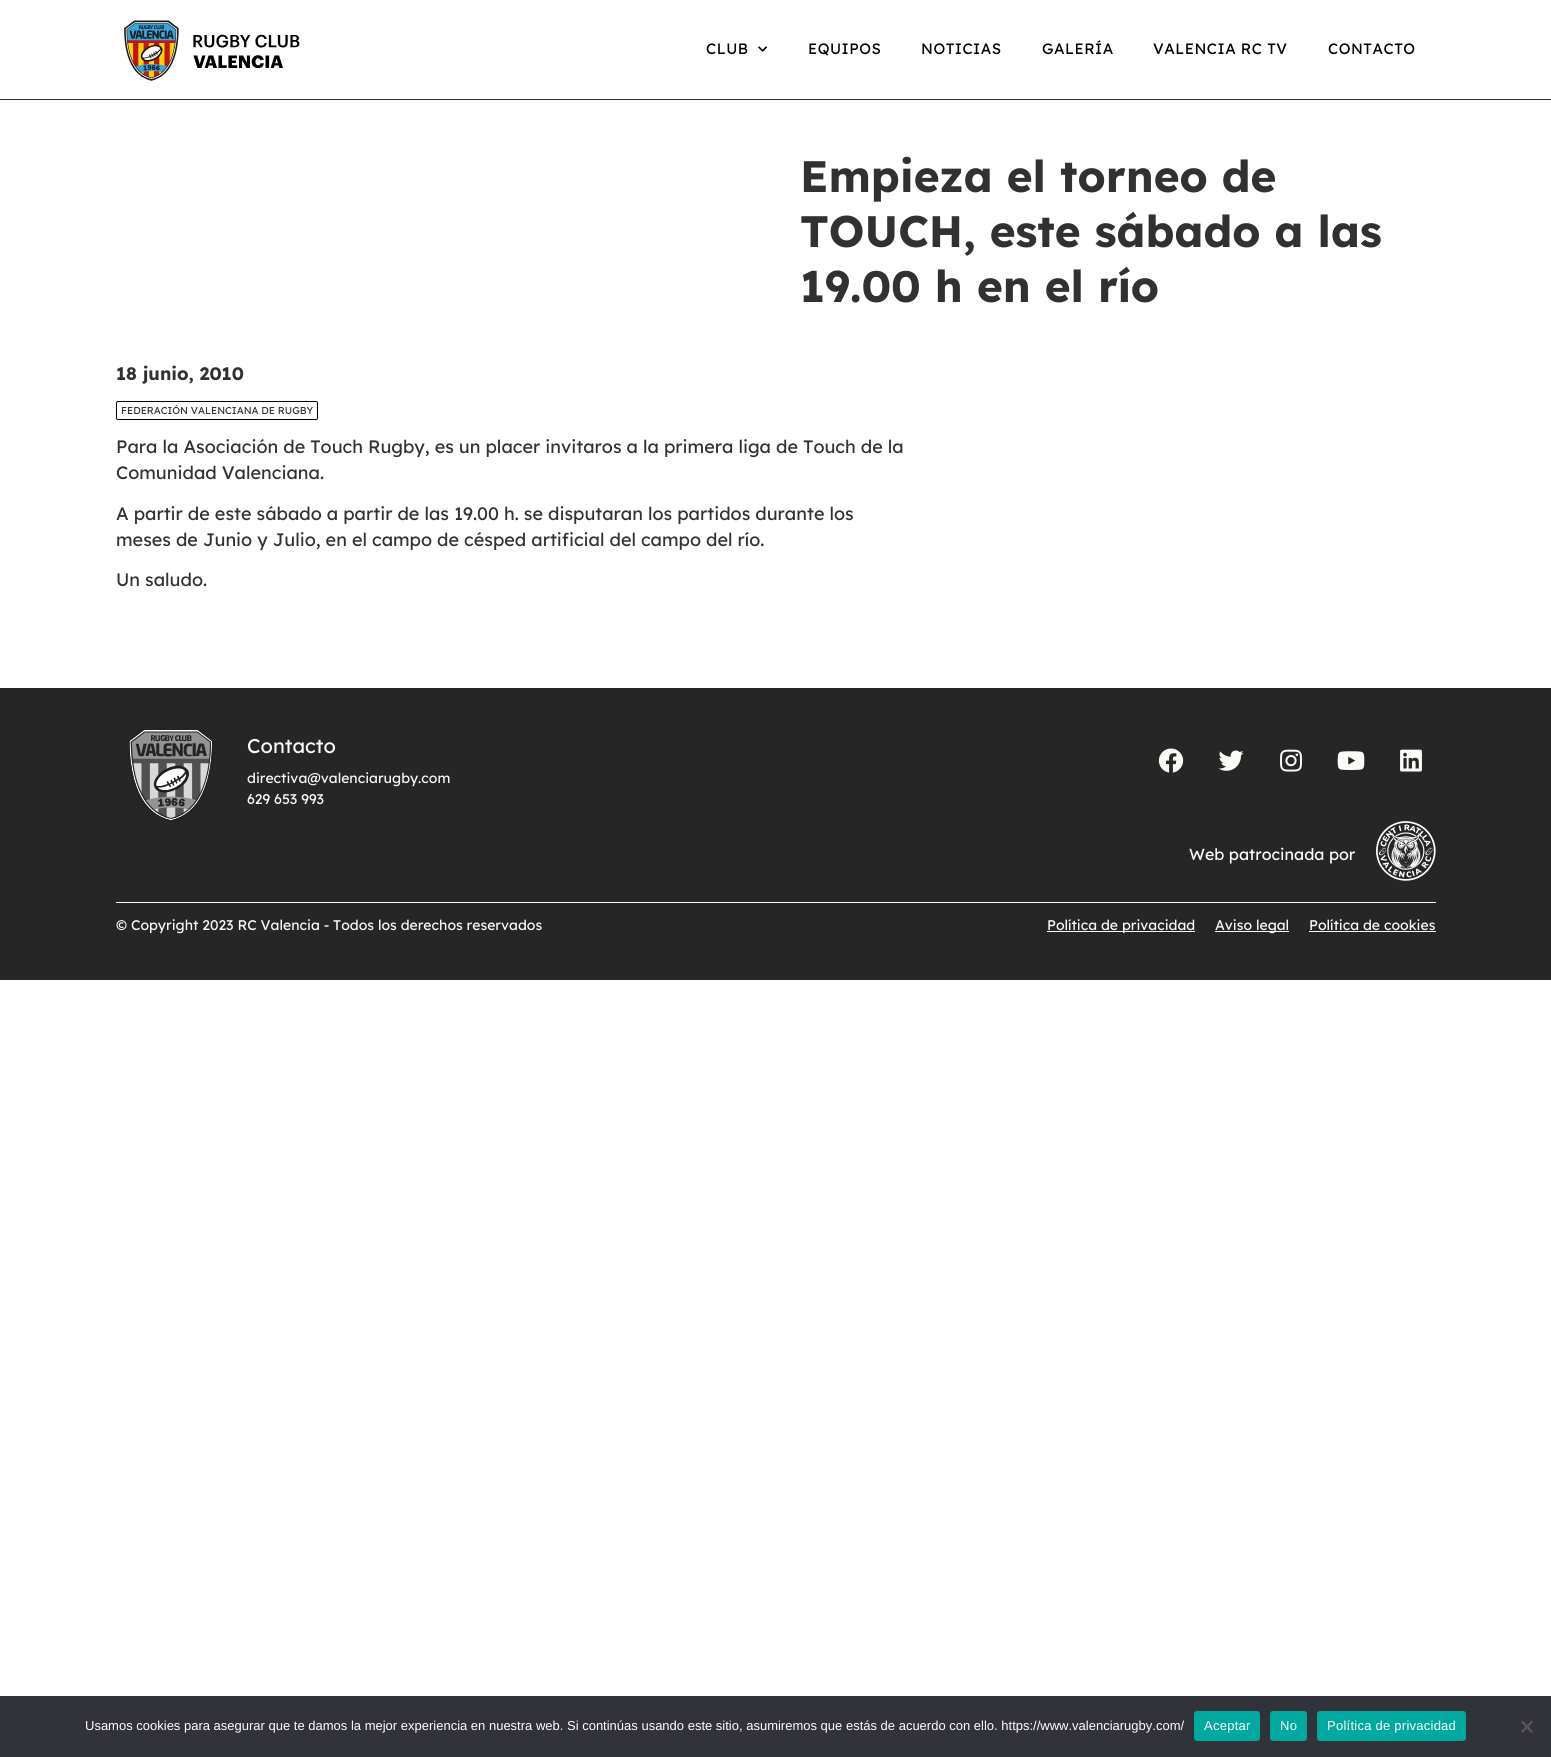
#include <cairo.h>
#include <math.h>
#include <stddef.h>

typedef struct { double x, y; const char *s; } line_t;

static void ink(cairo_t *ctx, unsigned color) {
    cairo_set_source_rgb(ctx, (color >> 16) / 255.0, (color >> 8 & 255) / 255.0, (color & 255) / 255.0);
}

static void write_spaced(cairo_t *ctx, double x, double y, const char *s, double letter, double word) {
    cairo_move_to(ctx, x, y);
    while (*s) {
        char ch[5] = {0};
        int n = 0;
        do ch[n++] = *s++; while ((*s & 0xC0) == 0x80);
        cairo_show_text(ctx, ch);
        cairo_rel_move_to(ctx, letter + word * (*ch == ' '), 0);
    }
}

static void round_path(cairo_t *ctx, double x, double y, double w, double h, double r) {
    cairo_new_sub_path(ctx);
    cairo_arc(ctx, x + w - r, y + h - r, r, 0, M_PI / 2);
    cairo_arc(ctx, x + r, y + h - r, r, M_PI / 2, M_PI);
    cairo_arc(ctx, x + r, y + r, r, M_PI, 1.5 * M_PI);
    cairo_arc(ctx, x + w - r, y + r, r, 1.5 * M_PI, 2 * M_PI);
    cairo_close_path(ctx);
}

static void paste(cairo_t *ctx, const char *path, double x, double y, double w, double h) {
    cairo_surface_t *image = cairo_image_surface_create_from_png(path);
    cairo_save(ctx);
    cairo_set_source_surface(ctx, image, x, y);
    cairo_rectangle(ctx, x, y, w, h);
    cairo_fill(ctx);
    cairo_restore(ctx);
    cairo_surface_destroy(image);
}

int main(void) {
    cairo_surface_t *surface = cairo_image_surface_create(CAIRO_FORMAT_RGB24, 1551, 1757);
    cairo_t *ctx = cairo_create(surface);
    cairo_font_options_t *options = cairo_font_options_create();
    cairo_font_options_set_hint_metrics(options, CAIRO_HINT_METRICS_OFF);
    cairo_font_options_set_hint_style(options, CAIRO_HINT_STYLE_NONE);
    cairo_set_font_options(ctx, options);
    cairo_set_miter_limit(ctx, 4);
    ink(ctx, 0xFFFFFF);
    cairo_paint(ctx);
    ink(ctx, 0x313131);
    cairo_rectangle(ctx, 0, 99, 1551, 1);
    cairo_fill(ctx);
    paste(ctx, "media/1.png", 124, 20, 176, 61);
    cairo_select_font_face(ctx, "Lexend", CAIRO_FONT_SLANT_NORMAL, CAIRO_FONT_WEIGHT_NORMAL);
    cairo_set_font_size(ctx, 15);
    ink(ctx, 0x000000);
    write_spaced(ctx, 706, 54, "CLUB", 0.5, 0);
    paste(ctx, "media/2.png", 758, 46, 9, 6);
    {
        static const line_t items[] = {
            {808, 54, "EQUIPOS"},
            {921, 54, "NOTICIAS"},
            {1042, 54, "GALERÍA"},
            {1153, 54, "VALENCIA RC TV"},
            {1328, 54, "CONTACTO"},
        };
        for (size_t i = 0; i < sizeof items / sizeof *items; i++) {
            write_spaced(ctx, items[i].x, items[i].y, items[i].s, 0.5, 0);
        }
    }
    cairo_select_font_face(ctx, "Lexend", CAIRO_FONT_SLANT_NORMAL, CAIRO_FONT_WEIGHT_BOLD);
    cairo_set_font_size(ctx, 44);
    ink(ctx, 0x313131);
    {
        static const line_t items[] = {
            {800, 192, "Empieza el torneo de"},
            {800, 247, "TOUCH, este sábado a las"},
            {800, 302, "19.00 h en el río"},
        };
        for (size_t i = 0; i < sizeof items / sizeof *items; i++) {
            cairo_move_to(ctx, items[i].x, items[i].y);
            cairo_show_text(ctx, items[i].s);
        }
    }
    cairo_set_font_size(ctx, 18);
    cairo_move_to(ctx, 116, 380);
    cairo_show_text(ctx, "18 junio, 2010");
    round_path(ctx, 116.5, 401.5, 201, 18, 1.5);
    ink(ctx, 0x000000);
    cairo_set_line_width(ctx, 1);
    cairo_stroke(ctx);
    cairo_select_font_face(ctx, "Lexend", CAIRO_FONT_SLANT_NORMAL, CAIRO_FONT_WEIGHT_NORMAL);
    cairo_set_font_size(ctx, 10);
    ink(ctx, 0x313131);
    cairo_move_to(ctx, 121, 414);
    cairo_show_text(ctx, "FEDERACIÓN VALENCIANA DE RUGBY");
    cairo_set_font_size(ctx, 18);
    {
        static const line_t items[] = {
            {116, 453, "Para la Asociación de Touch Rugby, es un placer invitaros a la primera liga de Touch de la"},
            {116, 479, "Comunidad Valenciana."},
            {116, 520, "A partir de este sábado a partir de las 19.00 h. se disputaran los partidos durante los"},
            {116, 546, "meses de Junio y Julio, en el campo de césped artificial del campo del río."},
            {116, 586, "Un saludo."},
        };
        for (size_t i = 0; i < sizeof items / sizeof *items; i++) {
            cairo_move_to(ctx, items[i].x, items[i].y);
            cairo_show_text(ctx, items[i].s);
        }
    }
    ink(ctx, 0x262626);
    cairo_rectangle(ctx, 0, 688, 1551, 292);
    cairo_fill(ctx);
    paste(ctx, "media/3.png", 127, 728, 87, 95);
    cairo_set_font_size(ctx, 20);
    ink(ctx, 0xFBFBF8);
    cairo_move_to(ctx, 247, 753);
    cairo_show_text(ctx, "Contacto");
    cairo_set_font_size(ctx, 14);
    cairo_move_to(ctx, 247, 783);
    cairo_show_text(ctx, "directiva@valenciarugby.com");
    cairo_move_to(ctx, 247, 804);
    cairo_show_text(ctx, "629 653 993");
    paste(ctx, "media/4.png", 1158, 748, 26, 25);
    paste(ctx, "media/5.png", 1218, 750, 26, 21);
    paste(ctx, "media/6.png", 1280, 749, 22, 23);
    paste(ctx, "media/7.png", 1337, 751, 28, 19);
    paste(ctx, "media/8.png", 1400, 749, 22, 23);
    cairo_set_font_size(ctx, 16);
    ink(ctx, 0xFFFFFF);
    cairo_move_to(ctx, 1189, 860);
    cairo_show_text(ctx, "Web patrocinada por");
    paste(ctx, "media/9.png", 1376, 821, 60, 60);
    ink(ctx, 0xFBFBF8);
    cairo_rectangle(ctx, 116, 902, 1320, 1);
    cairo_fill(ctx);
    cairo_set_font_size(ctx, 14);
    cairo_move_to(ctx, 116, 930);
    cairo_show_text(ctx, "© Copyright 2023 RC Valencia - Todos los derechos reservados");
    cairo_rectangle(ctx, 1047, 931, 148, 1);
    cairo_fill(ctx);
    cairo_move_to(ctx, 1047, 930);
    cairo_show_text(ctx, "Política de privacidad");
    cairo_rectangle(ctx, 1215, 931, 74, 1);
    cairo_fill(ctx);
    cairo_move_to(ctx, 1215, 930);
    cairo_show_text(ctx, "Aviso legal");
    cairo_move_to(ctx, 1309, 930);
    cairo_show_text(ctx, "Política de cookies");
    cairo_rectangle(ctx, 1309, 931, 127, 1);
    cairo_fill(ctx);
    ink(ctx, 0x32323A);
    cairo_rectangle(ctx, 0, 1696, 1551, 61);
    cairo_fill(ctx);
    cairo_select_font_face(ctx, "Liberation Sans", CAIRO_FONT_SLANT_NORMAL, CAIRO_FONT_WEIGHT_NORMAL);
    cairo_set_font_size(ctx, 13);
    ink(ctx, 0xFFFFFF);
    cairo_move_to(ctx, 85, 1730);
    cairo_show_text(ctx, "Usamos cookies para asegurar que te damos la mejor experiencia en nuestra web. Si continúas usando este sitio, asumiremos que estás de acuerdo con ello. https://www.valenciarugby.com/");
    ink(ctx, 0x00A99D);
    round_path(ctx, 1194, 1711, 66, 30, 3);
    cairo_fill(ctx);
    ink(ctx, 0xFFFFFF);
    write_spaced(ctx, 1204, 1730, "Aceptar", 0.25, 0);
    ink(ctx, 0x00A99D);
    round_path(ctx, 1270, 1711, 37, 30, 3);
    cairo_fill(ctx);
    ink(ctx, 0xFFFFFF);
    write_spaced(ctx, 1280, 1730, "No", 0.25, 0);
    ink(ctx, 0x00A99D);
    round_path(ctx, 1317, 1711, 149, 30, 3);
    cairo_fill(ctx);
    ink(ctx, 0xFFFFFF);
    write_spaced(ctx, 1327, 1730, "Política de privacidad", 0.25, 0);
    ink(ctx, 0x59595D);
    cairo_new_path(ctx);
    cairo_move_to(ctx, 1531.5, 1720.5);
    cairo_line_to(ctx, 1533, 1722);
    cairo_line_to(ctx, 1522.5, 1733);
    cairo_line_to(ctx, 1521, 1731.5);
    cairo_close_path(ctx);
    cairo_fill(ctx);
    cairo_new_path(ctx);
    cairo_move_to(ctx, 1521, 1722);
    cairo_line_to(ctx, 1522.5, 1720.5);
    cairo_line_to(ctx, 1533, 1731.5);
    cairo_line_to(ctx, 1531.5, 1733);
    cairo_close_path(ctx);
    cairo_fill(ctx);
    cairo_surface_write_to_png(surface, "image.png");
    cairo_font_options_destroy(options);
    cairo_destroy(ctx);
    cairo_surface_destroy(surface);
    return 0;
}
